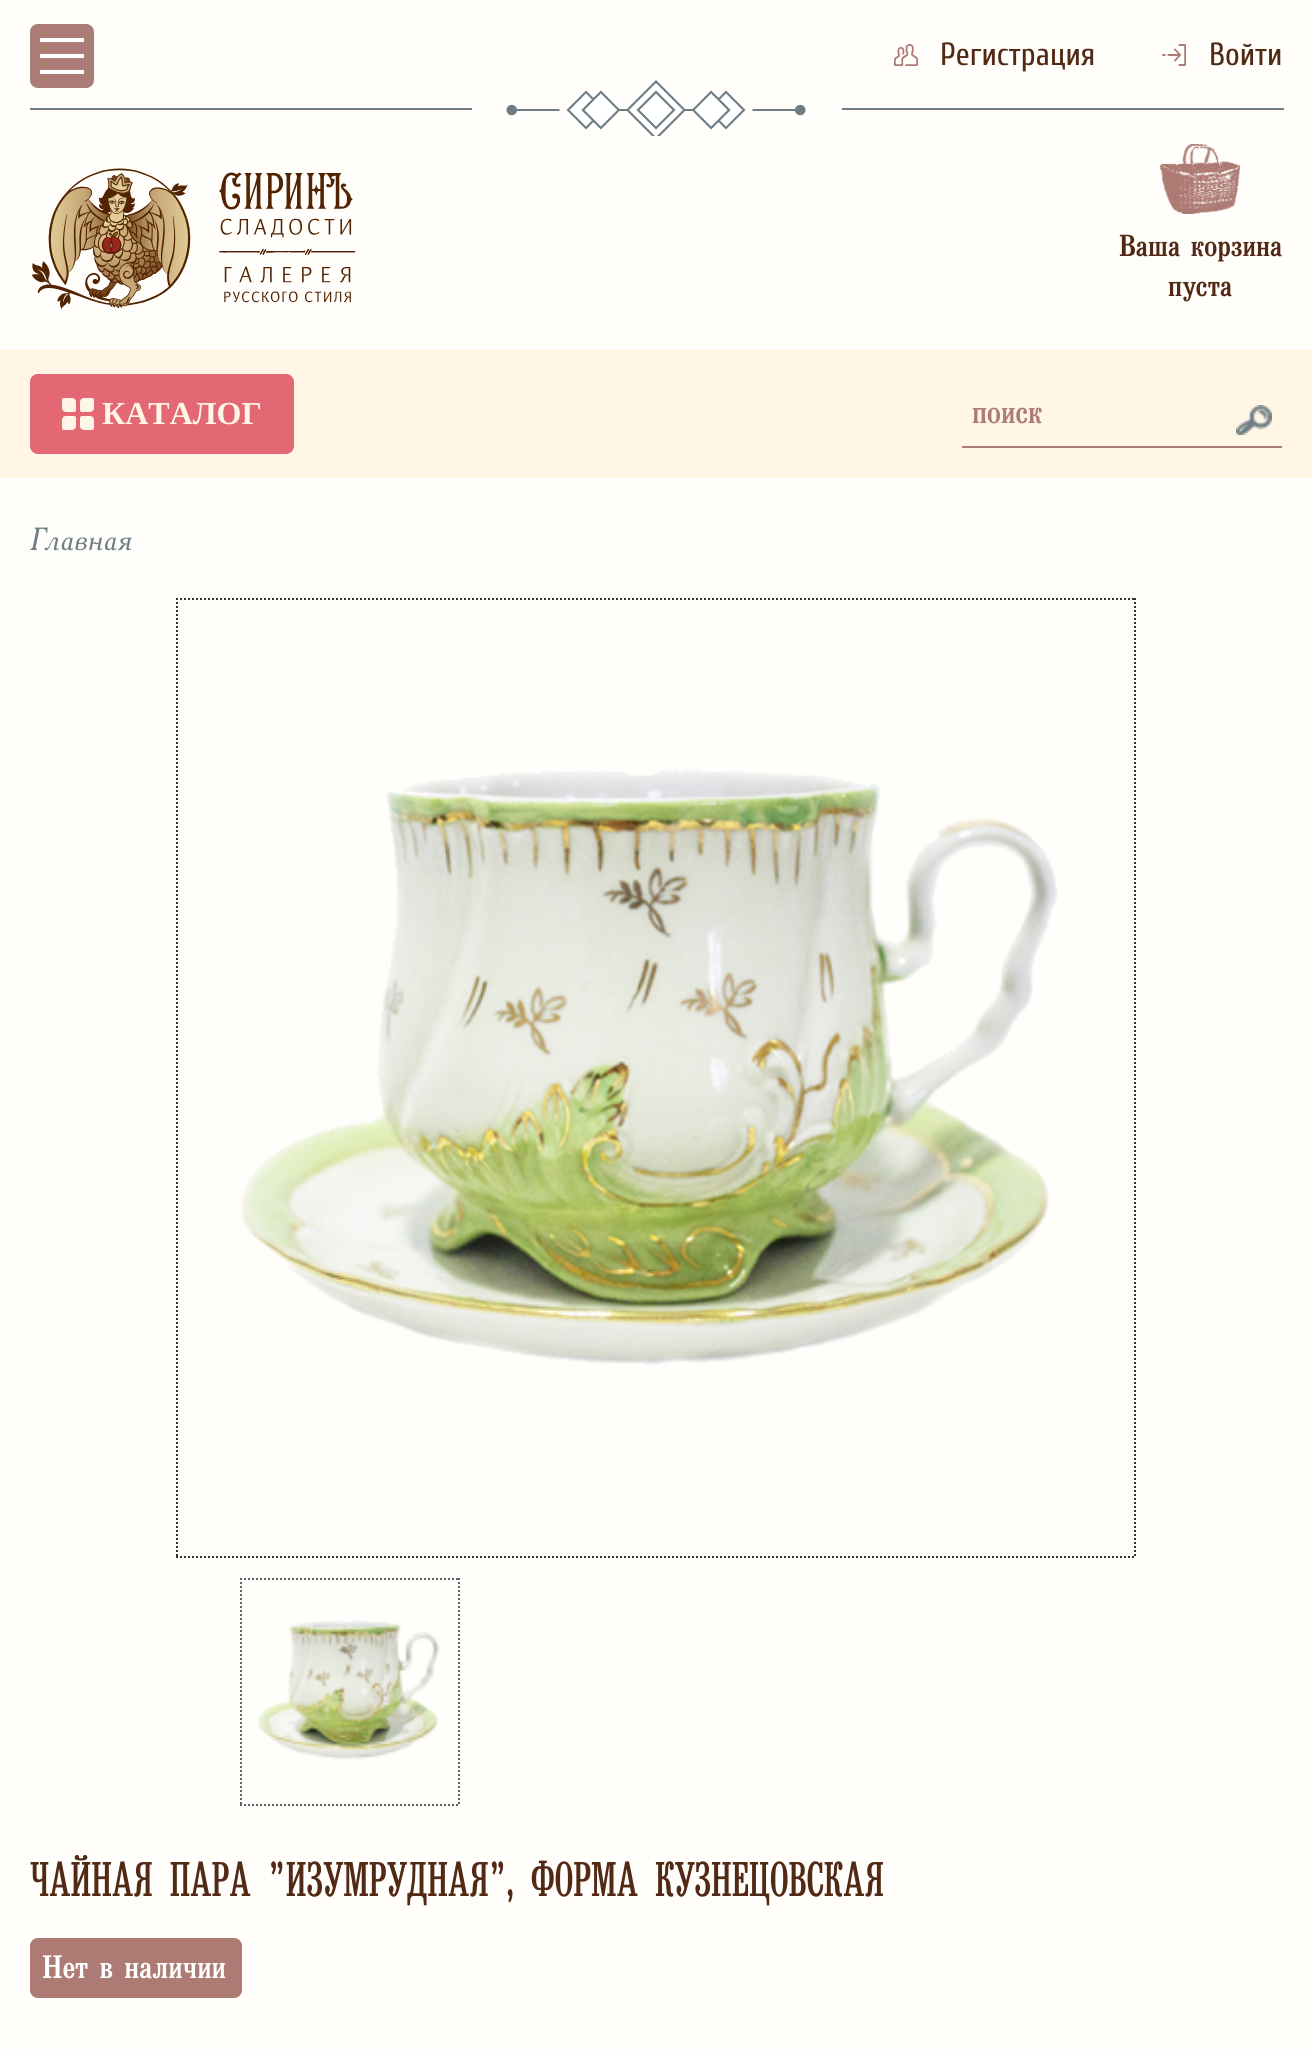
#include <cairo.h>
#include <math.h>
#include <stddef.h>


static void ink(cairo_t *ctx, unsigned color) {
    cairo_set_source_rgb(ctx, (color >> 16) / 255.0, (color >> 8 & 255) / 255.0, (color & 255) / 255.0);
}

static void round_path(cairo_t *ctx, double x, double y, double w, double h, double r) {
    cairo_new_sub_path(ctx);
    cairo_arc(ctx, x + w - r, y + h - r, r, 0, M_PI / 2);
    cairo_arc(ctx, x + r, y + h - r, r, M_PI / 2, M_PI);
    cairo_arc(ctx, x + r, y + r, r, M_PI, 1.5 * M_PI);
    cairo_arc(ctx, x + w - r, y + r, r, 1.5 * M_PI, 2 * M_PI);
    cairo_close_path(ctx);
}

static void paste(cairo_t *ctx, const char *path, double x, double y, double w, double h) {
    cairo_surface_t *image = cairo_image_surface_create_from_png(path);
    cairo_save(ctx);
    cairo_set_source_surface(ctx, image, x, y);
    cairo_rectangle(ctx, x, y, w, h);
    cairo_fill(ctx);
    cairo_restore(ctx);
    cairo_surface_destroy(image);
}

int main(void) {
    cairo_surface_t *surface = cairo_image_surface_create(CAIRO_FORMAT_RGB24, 1312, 2050);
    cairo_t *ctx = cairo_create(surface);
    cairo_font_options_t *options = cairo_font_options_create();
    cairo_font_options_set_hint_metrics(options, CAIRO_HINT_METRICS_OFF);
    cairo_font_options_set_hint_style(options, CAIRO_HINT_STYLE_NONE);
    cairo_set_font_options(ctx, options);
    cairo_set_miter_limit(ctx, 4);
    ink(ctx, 0xFFFEFB);
    cairo_paint(ctx);
    ink(ctx, 0xAB7B76);
    round_path(ctx, 30, 24, 64, 64, 8);
    cairo_fill(ctx);
    paste(ctx, "media/1.png", 40, 38, 44, 36);
    paste(ctx, "media/2.png", 894, 44, 24, 22);
    cairo_select_font_face(ctx, "Cuprum", CAIRO_FONT_SLANT_NORMAL, CAIRO_FONT_WEIGHT_NORMAL);
    cairo_set_font_size(ctx, 32);
    ink(ctx, 0x512914);
    cairo_move_to(ctx, 940, 65);
    cairo_show_text(ctx, "Регистрация");
    paste(ctx, "media/3.png", 1162, 44, 24, 22);
    cairo_move_to(ctx, 1209, 65);
    cairo_show_text(ctx, "Войти");
    ink(ctx, 0x6F7E85);
    cairo_rectangle(ctx, 30, 108, 442, 2);
    cairo_fill(ctx);
    paste(ctx, "media/4.png", 506, 80, 300, 56);
    cairo_rectangle(ctx, 842, 108, 442, 2);
    cairo_fill(ctx);
    paste(ctx, "media/5.png", 31, 168, 325, 142);
    paste(ctx, "media/6.png", 1160, 144, 80, 70);
    cairo_select_font_face(ctx, "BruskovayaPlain", CAIRO_FONT_SLANT_NORMAL, CAIRO_FONT_WEIGHT_BOLD);
    cairo_set_font_size(ctx, 30);
    ink(ctx, 0x512914);
    cairo_move_to(ctx, 1119, 256);
    cairo_show_text(ctx, "Ваша корзина");
    cairo_move_to(ctx, 1168, 296);
    cairo_show_text(ctx, "пуста");
    ink(ctx, 0xFFF6E6);
    cairo_rectangle(ctx, 0, 350, 1312, 128);
    cairo_fill(ctx);
    ink(ctx, 0xE36874);
    round_path(ctx, 30, 374, 264, 80, 8);
    cairo_fill(ctx);
    paste(ctx, "media/7.png", 62, 398, 32, 32);
    cairo_select_font_face(ctx, "Liberation Serif", CAIRO_FONT_SLANT_NORMAL, CAIRO_FONT_WEIGHT_BOLD);
    cairo_set_font_size(ctx, 32);
    ink(ctx, 0xFFF6E7);
    cairo_move_to(ctx, 102, 424);
    cairo_show_text(ctx, "КАТАЛОГ");
    ink(ctx, 0xAD7B74);
    cairo_rectangle(ctx, 962, 446, 320, 2);
    cairo_fill(ctx);
    cairo_select_font_face(ctx, "BruskovayaPlain", CAIRO_FONT_SLANT_NORMAL, CAIRO_FONT_WEIGHT_BOLD);
    cairo_move_to(ctx, 972, 423);
    cairo_show_text(ctx, "поиск");
    paste(ctx, "media/8.png", 1236, 405, 36, 30);
    cairo_select_font_face(ctx, "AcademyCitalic", CAIRO_FONT_SLANT_NORMAL, CAIRO_FONT_WEIGHT_NORMAL);
    ink(ctx, 0x6F7E85);
    cairo_move_to(ctx, 30, 550);
    cairo_show_text(ctx, "Главная");
    cairo_new_path(ctx);
    cairo_move_to(ctx, 176, 599);
    cairo_line_to(ctx, 1136, 599);
    ink(ctx, 0x363132);
    cairo_set_dash(ctx, (double[]){2, 2}, 2, 0);
    cairo_stroke(ctx);
    cairo_new_path(ctx);
    cairo_move_to(ctx, 1135, 598);
    cairo_line_to(ctx, 1135, 1558);
    cairo_stroke(ctx);
    cairo_new_path(ctx);
    cairo_move_to(ctx, 176, 1557);
    cairo_line_to(ctx, 1136, 1557);
    cairo_stroke(ctx);
    cairo_new_path(ctx);
    cairo_move_to(ctx, 177, 598);
    cairo_line_to(ctx, 177, 1558);
    cairo_stroke(ctx);
    paste(ctx, "media/9.png", 241, 769, 817, 596);
    cairo_new_path(ctx);
    cairo_move_to(ctx, 240, 1579);
    cairo_line_to(ctx, 460, 1579);
    ink(ctx, 0x556666);
    cairo_stroke(ctx);
    cairo_new_path(ctx);
    cairo_move_to(ctx, 459, 1578);
    cairo_line_to(ctx, 459, 1806);
    cairo_stroke(ctx);
    cairo_new_path(ctx);
    cairo_move_to(ctx, 240, 1805);
    cairo_line_to(ctx, 460, 1805);
    cairo_stroke(ctx);
    cairo_new_path(ctx);
    cairo_move_to(ctx, 241, 1578);
    cairo_line_to(ctx, 241, 1806);
    cairo_stroke(ctx);
    paste(ctx, "media/10.png", 257, 1620, 183, 140);
    cairo_select_font_face(ctx, "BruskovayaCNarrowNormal", CAIRO_FONT_SLANT_NORMAL, CAIRO_FONT_WEIGHT_NORMAL);
    cairo_set_font_size(ctx, 48);
    ink(ctx, 0x512914);
    cairo_move_to(ctx, 30, 1896);
    cairo_show_text(ctx, "ЧАЙНАЯ ПАРА \"ИЗУМРУДНАЯ\", ФОРМА КУЗНЕЦОВСКАЯ");
    ink(ctx, 0xAE7B74);
    round_path(ctx, 30, 1938, 212, 60, 8);
    cairo_fill(ctx);
    cairo_select_font_face(ctx, "BruskovayaPlain", CAIRO_FONT_SLANT_NORMAL, CAIRO_FONT_WEIGHT_BOLD);
    cairo_set_font_size(ctx, 32);
    ink(ctx, 0xFFFFFF);
    cairo_move_to(ctx, 42, 1978);
    cairo_show_text(ctx, "Нет в наличии");
    cairo_surface_write_to_png(surface, "image.png");
    cairo_font_options_destroy(options);
    cairo_destroy(ctx);
    cairo_surface_destroy(surface);
    return 0;
}
